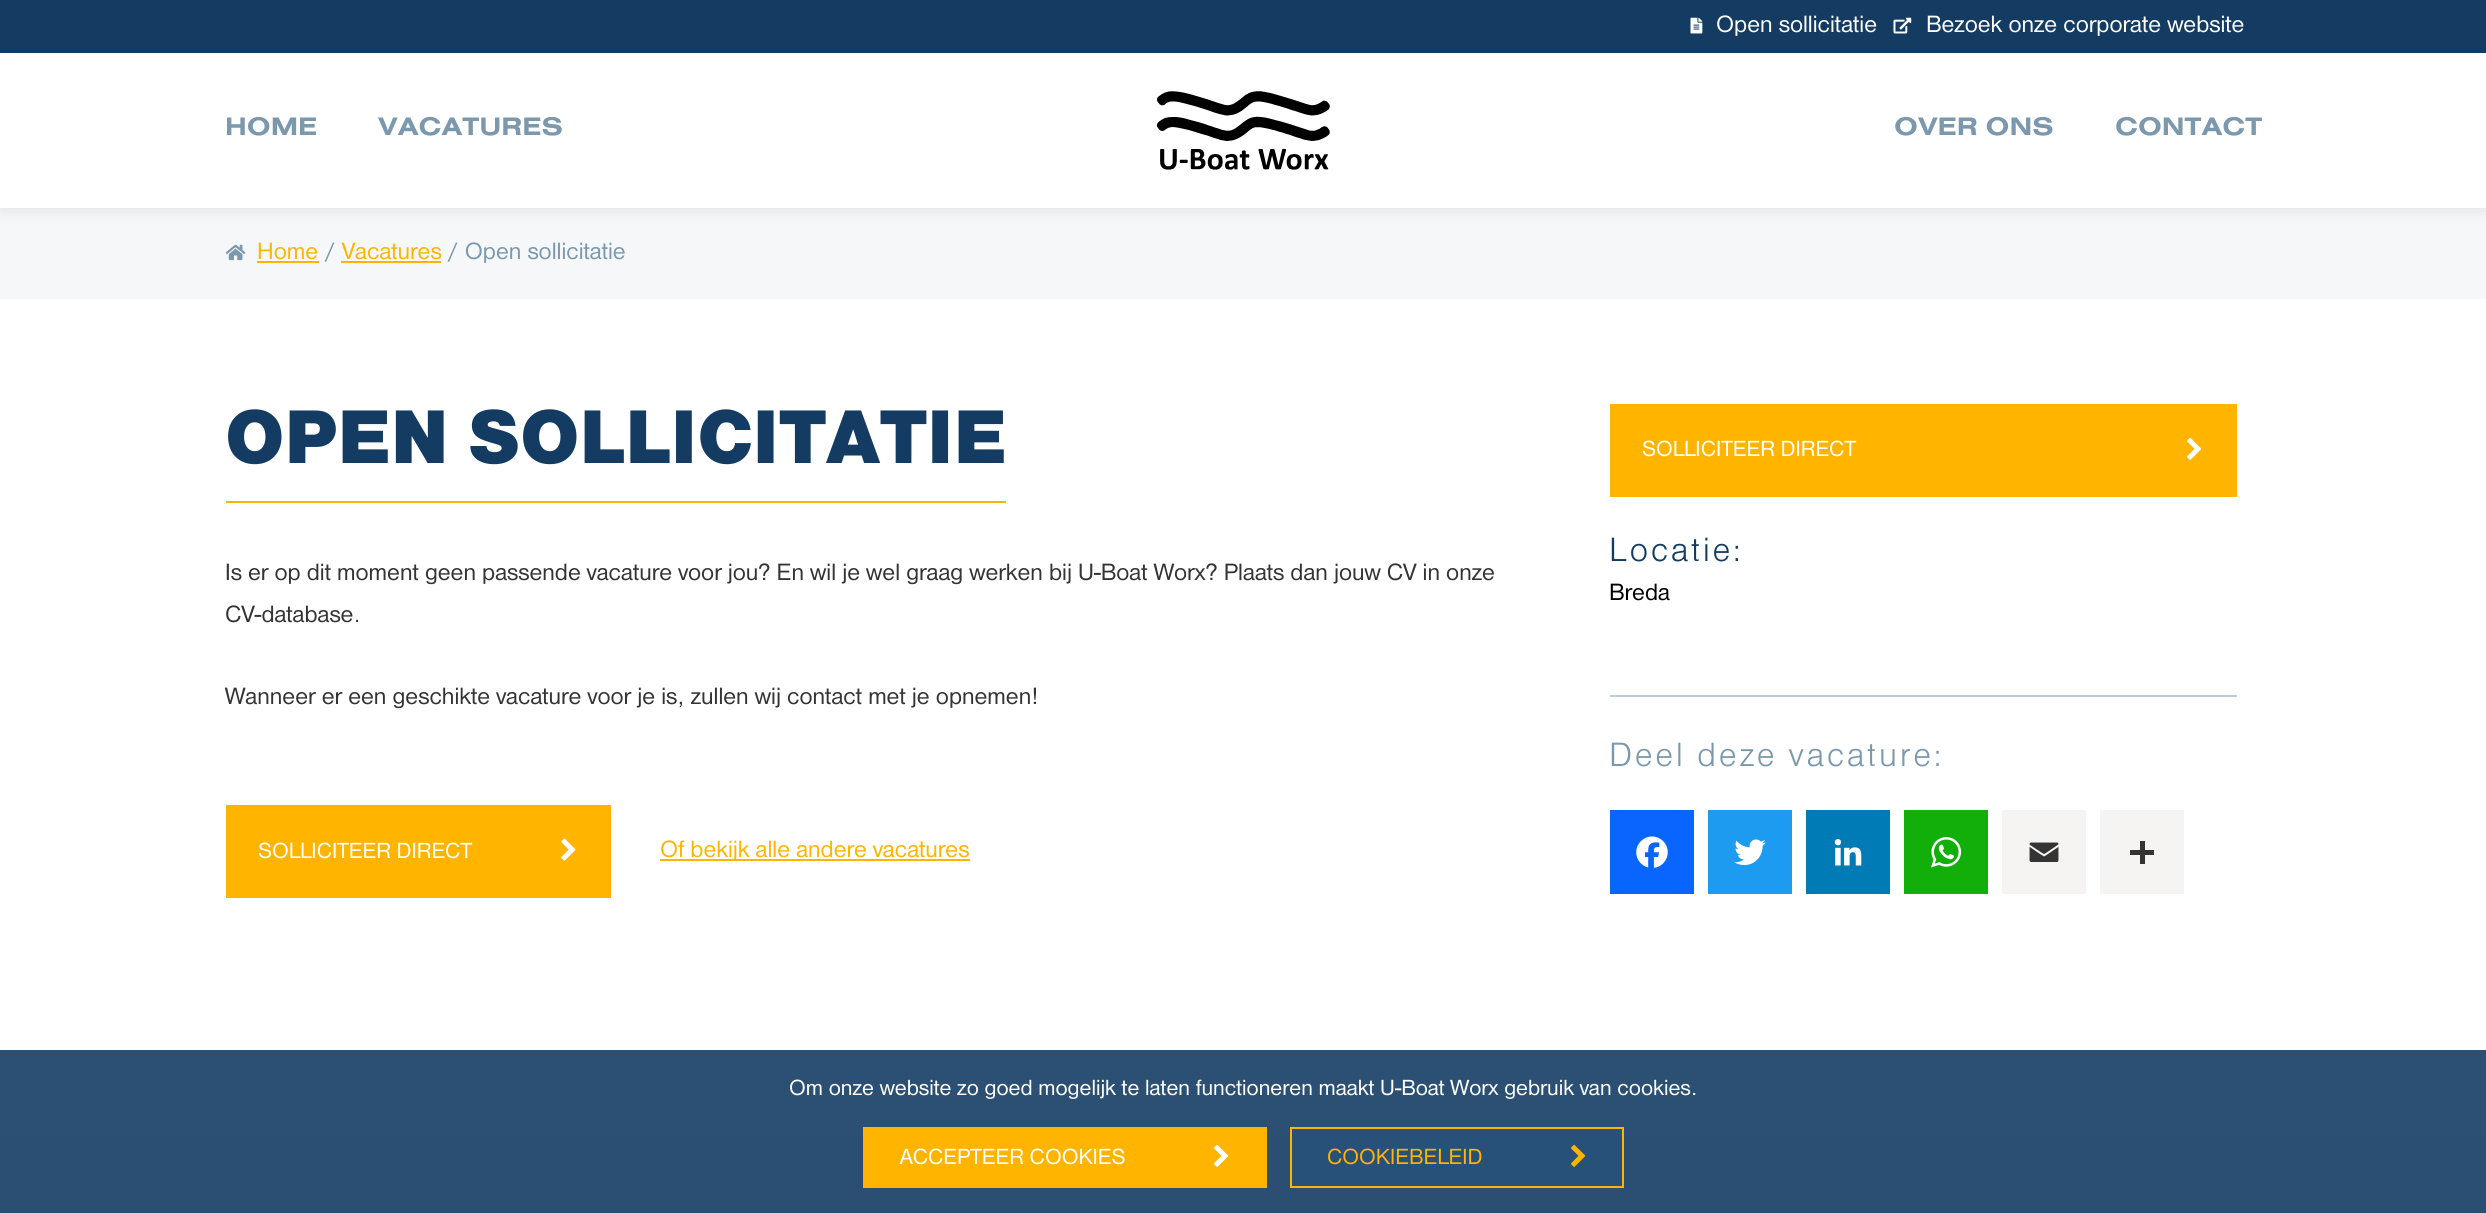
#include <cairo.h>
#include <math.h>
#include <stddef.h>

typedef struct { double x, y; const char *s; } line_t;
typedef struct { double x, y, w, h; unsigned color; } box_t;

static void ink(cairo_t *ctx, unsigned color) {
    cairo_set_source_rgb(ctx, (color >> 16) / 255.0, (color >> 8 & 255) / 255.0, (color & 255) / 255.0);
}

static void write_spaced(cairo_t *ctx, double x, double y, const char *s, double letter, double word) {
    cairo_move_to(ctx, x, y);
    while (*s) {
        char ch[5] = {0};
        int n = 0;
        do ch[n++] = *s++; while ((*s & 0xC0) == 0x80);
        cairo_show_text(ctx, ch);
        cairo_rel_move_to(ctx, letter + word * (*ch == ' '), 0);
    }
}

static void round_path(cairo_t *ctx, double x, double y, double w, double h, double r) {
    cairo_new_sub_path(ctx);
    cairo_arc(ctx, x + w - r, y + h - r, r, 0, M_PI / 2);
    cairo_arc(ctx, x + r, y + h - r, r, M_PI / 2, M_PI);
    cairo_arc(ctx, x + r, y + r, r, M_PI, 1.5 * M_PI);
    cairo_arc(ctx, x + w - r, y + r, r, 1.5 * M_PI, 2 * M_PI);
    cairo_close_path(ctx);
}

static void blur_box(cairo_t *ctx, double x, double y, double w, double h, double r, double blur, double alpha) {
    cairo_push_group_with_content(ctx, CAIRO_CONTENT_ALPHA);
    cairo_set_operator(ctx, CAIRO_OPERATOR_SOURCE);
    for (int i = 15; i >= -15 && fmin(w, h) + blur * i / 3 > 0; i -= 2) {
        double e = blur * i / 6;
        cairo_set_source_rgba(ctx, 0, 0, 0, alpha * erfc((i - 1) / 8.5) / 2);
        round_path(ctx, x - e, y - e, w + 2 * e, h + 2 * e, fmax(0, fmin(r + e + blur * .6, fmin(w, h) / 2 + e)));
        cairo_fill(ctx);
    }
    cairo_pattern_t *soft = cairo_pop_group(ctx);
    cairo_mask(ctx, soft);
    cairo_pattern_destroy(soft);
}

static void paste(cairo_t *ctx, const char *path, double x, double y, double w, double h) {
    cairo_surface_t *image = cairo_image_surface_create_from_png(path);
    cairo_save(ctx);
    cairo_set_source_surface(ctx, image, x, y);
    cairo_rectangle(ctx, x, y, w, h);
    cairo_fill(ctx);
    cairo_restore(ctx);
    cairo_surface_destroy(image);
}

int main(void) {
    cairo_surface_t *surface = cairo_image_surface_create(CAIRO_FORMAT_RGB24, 2486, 1213);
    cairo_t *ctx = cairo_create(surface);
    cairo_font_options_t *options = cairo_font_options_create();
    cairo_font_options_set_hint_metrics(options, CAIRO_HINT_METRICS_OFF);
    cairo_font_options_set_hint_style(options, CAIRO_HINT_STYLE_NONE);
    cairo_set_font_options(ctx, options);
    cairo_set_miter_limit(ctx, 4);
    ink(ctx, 0x143C63);
    cairo_paint(ctx);
    paste(ctx, "media/1.png", 1690, 17, 13, 17);
    cairo_select_font_face(ctx, "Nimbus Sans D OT", CAIRO_FONT_SLANT_NORMAL, CAIRO_FONT_WEIGHT_NORMAL);
    cairo_set_font_size(ctx, 24.5);
    ink(ctx, 0xFFFFFF);
    cairo_move_to(ctx, 1716, 32);
    cairo_show_text(ctx, "Open sollicitatie");
    paste(ctx, "media/2.png", 1893, 17, 19, 17);
    cairo_move_to(ctx, 1926, 32);
    cairo_show_text(ctx, "Bezoek onze corporate website");
    ink(ctx, 0xF5F7F9);
    cairo_rectangle(ctx, 0, 208, 2486, 91);
    cairo_fill(ctx);
    ink(ctx, 0x000000);
    blur_box(ctx, 0, 53, 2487, 155, 0, 9, 0.1);
    ink(ctx, 0xFFFFFF);
    cairo_rectangle(ctx, 0, 53, 2486, 155);
    cairo_fill(ctx);
    paste(ctx, "media/3.png", 1157, 91, 173, 79);
    cairo_select_font_face(ctx, "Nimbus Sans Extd", CAIRO_FONT_SLANT_NORMAL, CAIRO_FONT_WEIGHT_BOLD);
    cairo_set_font_size(ctx, 26.25);
    ink(ctx, 0x7B98AC);
    {
        static const line_t items[] = {
            {225, 135, "HOME"},
            {378, 135, "VACATURES"},
            {1894, 135, "OVER ONS"},
            {2115, 135, "CONTACT"},
        };
        for (size_t i = 0; i < sizeof items / sizeof *items; i++) {
            cairo_move_to(ctx, items[i].x, items[i].y);
            cairo_show_text(ctx, items[i].s);
        }
    }
    paste(ctx, "media/4.png", 225, 244, 21, 17);
    cairo_select_font_face(ctx, "Nimbus Sans D OT", CAIRO_FONT_SLANT_NORMAL, CAIRO_FONT_WEIGHT_NORMAL);
    cairo_set_font_size(ctx, 24.5);
    ink(ctx, 0xFFB400);
    cairo_move_to(ctx, 257, 259);
    cairo_show_text(ctx, "Home");
    cairo_rectangle(ctx, 257, 261, 62, 2);
    cairo_fill(ctx);
    ink(ctx, 0x7B98AC);
    cairo_move_to(ctx, 324, 259);
    cairo_show_text(ctx, "/");
    ink(ctx, 0xFFB400);
    cairo_move_to(ctx, 342, 259);
    cairo_show_text(ctx, "Vacatures");
    cairo_rectangle(ctx, 341, 261, 100, 2);
    cairo_fill(ctx);
    ink(ctx, 0x7B98AC);
    cairo_move_to(ctx, 447, 259);
    cairo_show_text(ctx, "/ Open sollicitatie");
    ink(ctx, 0xFFFFFF);
    cairo_rectangle(ctx, 0, 299, 2486, 751);
    cairo_fill(ctx);
    ink(ctx, 0x2B5073);
    cairo_rectangle(ctx, 0, 1050, 2486, 86);
    cairo_fill(ctx);
    cairo_select_font_face(ctx, "Nimbus Sans D OT Black", CAIRO_FONT_SLANT_NORMAL, CAIRO_FONT_WEIGHT_NORMAL);
    cairo_set_font_size(ctx, 78.75);
    ink(ctx, 0x143C63);
    cairo_move_to(ctx, 225, 463);
    cairo_show_text(ctx, "OPEN SOLLICITATIE");
    ink(ctx, 0xFFB400);
    cairo_rectangle(ctx, 226, 501, 780, 2);
    cairo_fill(ctx);
    cairo_select_font_face(ctx, "Nimbus Sans D OT", CAIRO_FONT_SLANT_NORMAL, CAIRO_FONT_WEIGHT_NORMAL);
    cairo_set_font_size(ctx, 24.5);
    ink(ctx, 0x343434);
    {
        static const line_t items[] = {
            {225, 580, "Is er op dit moment geen passende vacature voor jou? En wil je wel graag werken bij U-Boat Worx? Plaats dan jouw CV in onze"},
            {225, 622, "CV-database."},
            {225, 704, "Wanneer er een geschikte vacature voor je is, zullen wij contact met je opnemen!"},
        };
        for (size_t i = 0; i < sizeof items / sizeof *items; i++) {
            cairo_move_to(ctx, items[i].x, items[i].y);
            cairo_show_text(ctx, items[i].s);
        }
    }
    ink(ctx, 0xFFB400);
    cairo_rectangle(ctx, 226, 805, 385, 93);
    cairo_fill(ctx);
    cairo_set_font_size(ctx, 22.75);
    ink(ctx, 0xFFFFFF);
    cairo_move_to(ctx, 258, 858);
    cairo_show_text(ctx, "SOLLICITEER DIRECT");
    paste(ctx, "media/5.png", 561, 838, 15, 23);
    ink(ctx, 0xFFB400);
    cairo_rectangle(ctx, 660, 859, 310, 2);
    cairo_fill(ctx);
    cairo_set_font_size(ctx, 24.5);
    cairo_move_to(ctx, 660, 857);
    cairo_show_text(ctx, "Of bekijk alle andere vacatures");
    cairo_rectangle(ctx, 1610, 404, 627, 93);
    cairo_fill(ctx);
    cairo_set_font_size(ctx, 22.75);
    ink(ctx, 0xFFFFFF);
    cairo_move_to(ctx, 1642, 456);
    cairo_show_text(ctx, "SOLLICITEER DIRECT");
    paste(ctx, "media/6.png", 2187, 437, 15, 23);
    ink(ctx, 0xBDCCD6);
    cairo_rectangle(ctx, 1610, 695, 627, 2);
    cairo_fill(ctx);
    cairo_select_font_face(ctx, "Nimbus Sans D OT Light", CAIRO_FONT_SLANT_NORMAL, CAIRO_FONT_WEIGHT_NORMAL);
    cairo_set_font_size(ctx, 35);
    ink(ctx, 0x143C63);
    write_spaced(ctx, 1609, 561, "Locatie:", 2.6, 0);
    cairo_select_font_face(ctx, "Nimbus Sans D OT", CAIRO_FONT_SLANT_NORMAL, CAIRO_FONT_WEIGHT_NORMAL);
    cairo_set_font_size(ctx, 24.5);
    ink(ctx, 0x000000);
    cairo_move_to(ctx, 1609, 600);
    cairo_show_text(ctx, "Breda");
    cairo_select_font_face(ctx, "Nimbus Sans D OT Light", CAIRO_FONT_SLANT_NORMAL, CAIRO_FONT_WEIGHT_NORMAL);
    cairo_set_font_size(ctx, 35);
    ink(ctx, 0x7B98AC);
    write_spaced(ctx, 1609, 766, "Deel deze vacature:", 2.6, 0);
    ink(ctx, 0x0866FF);
    cairo_rectangle(ctx, 1610, 810, 84, 84);
    cairo_fill(ctx);
    paste(ctx, "media/7.png", 1636, 836, 32, 32);
    ink(ctx, 0x1D9BF0);
    cairo_rectangle(ctx, 1708, 810, 84, 84);
    cairo_fill(ctx);
    paste(ctx, "media/8.png", 1734, 839, 32, 27);
    ink(ctx, 0x007BB5);
    cairo_rectangle(ctx, 1806, 810, 84, 84);
    cairo_fill(ctx);
    paste(ctx, "media/9.png", 1834, 839, 28, 27);
    ink(ctx, 0x12AF0A);
    cairo_rectangle(ctx, 1904, 810, 84, 84);
    cairo_fill(ctx);
    paste(ctx, "media/10.png", 1931, 837, 31, 31);
    ink(ctx, 0xF5F4F3);
    cairo_rectangle(ctx, 2002, 810, 84, 84);
    cairo_fill(ctx);
    paste(ctx, "media/11.png", 2029, 842, 30, 20);
    {
        static const box_t items[] = {
            {2100, 810, 84, 84, 0xF5F4F3},
            {2140, 841, 5, 23, 0x343434},
            {2130, 850, 24, 5, 0x343434},
        };
        for (size_t i = 0; i < sizeof items / sizeof *items; i++) {
            ink(ctx, items[i].color);
            cairo_rectangle(ctx, items[i].x, items[i].y, items[i].w, items[i].h);
            cairo_fill(ctx);
        }
    }
    cairo_select_font_face(ctx, "Nimbus Sans D OT", CAIRO_FONT_SLANT_NORMAL, CAIRO_FONT_WEIGHT_NORMAL);
    cairo_set_font_size(ctx, 22.75);
    ink(ctx, 0xFFFFFF);
    cairo_move_to(ctx, 789, 1095);
    cairo_show_text(ctx, "Om onze website zo goed mogelijk te laten functioneren maakt U-Boat Worx gebruik van cookies.");
    ink(ctx, 0x2B4F72);
    cairo_rectangle(ctx, 0, 1136, 2486, 77);
    cairo_fill(ctx);
    ink(ctx, 0xFFB400);
    cairo_rectangle(ctx, 863, 1127, 404, 61);
    cairo_fill(ctx);
    ink(ctx, 0xFFFFFF);
    cairo_move_to(ctx, 900, 1164);
    cairo_show_text(ctx, "ACCEPTEER COOKIES");
    paste(ctx, "media/6.png", 1214, 1144, 15, 23);
    ink(ctx, 0x285179);
    cairo_rectangle(ctx, 1291, 1128, 332, 59);
    cairo_fill_preserve(ctx);
    ink(ctx, 0xFFB400);
    cairo_stroke(ctx);
    cairo_move_to(ctx, 1327, 1164);
    cairo_show_text(ctx, "COOKIEBELEID");
    paste(ctx, "media/12.png", 1571, 1144, 15, 23);
    cairo_surface_write_to_png(surface, "image.png");
    cairo_font_options_destroy(options);
    cairo_destroy(ctx);
    cairo_surface_destroy(surface);
    return 0;
}
